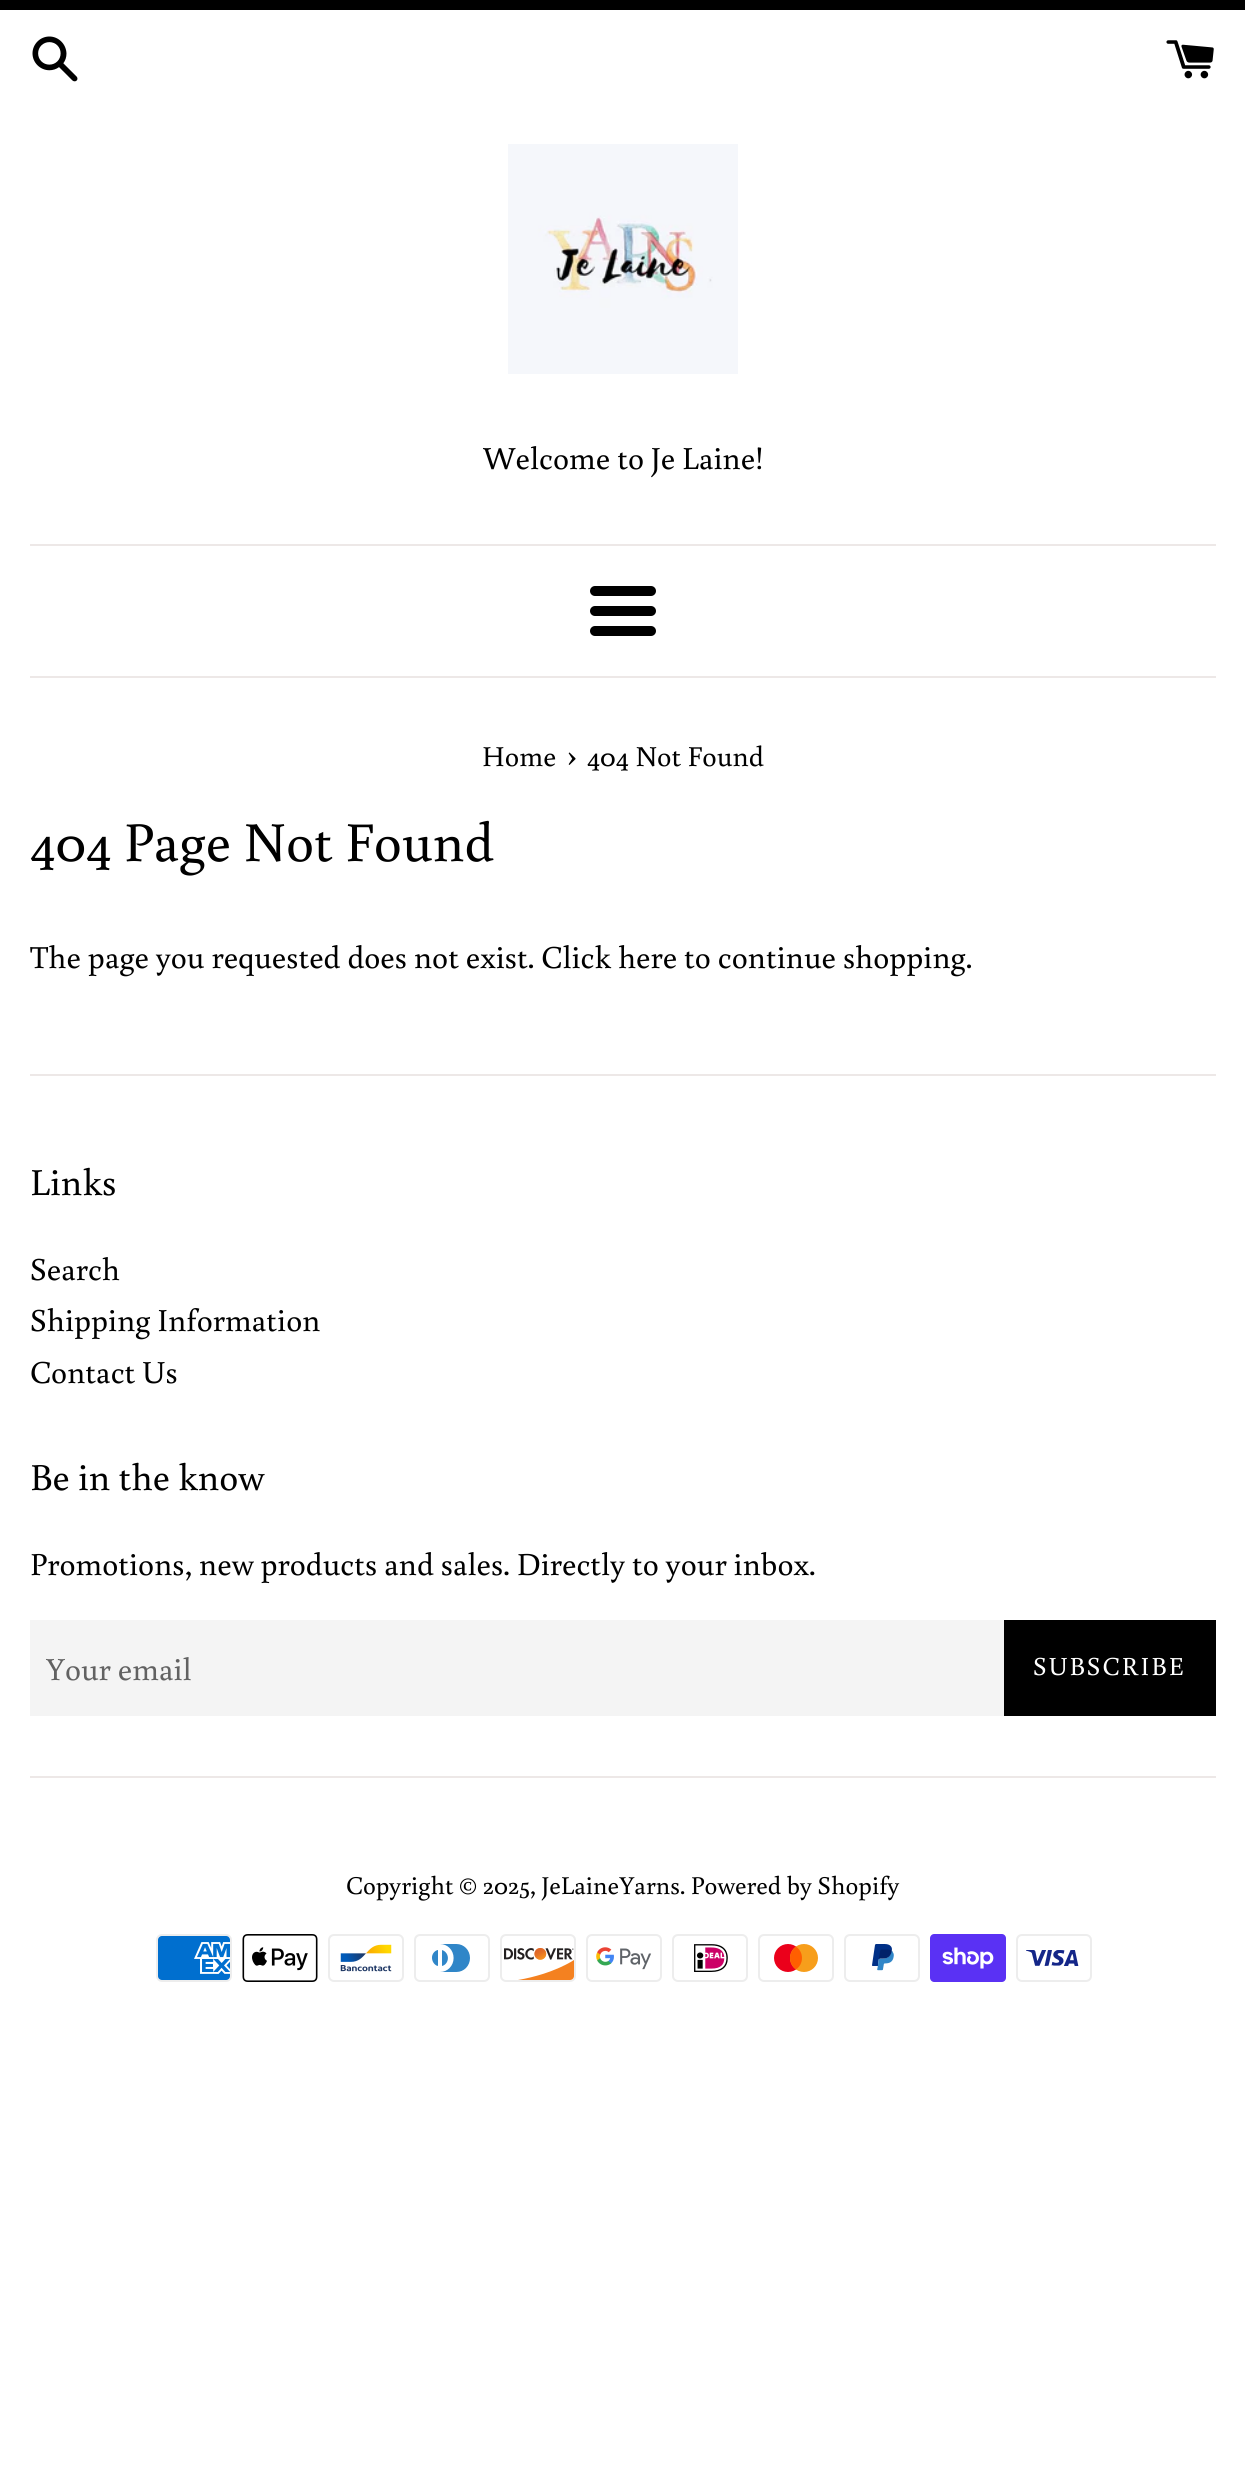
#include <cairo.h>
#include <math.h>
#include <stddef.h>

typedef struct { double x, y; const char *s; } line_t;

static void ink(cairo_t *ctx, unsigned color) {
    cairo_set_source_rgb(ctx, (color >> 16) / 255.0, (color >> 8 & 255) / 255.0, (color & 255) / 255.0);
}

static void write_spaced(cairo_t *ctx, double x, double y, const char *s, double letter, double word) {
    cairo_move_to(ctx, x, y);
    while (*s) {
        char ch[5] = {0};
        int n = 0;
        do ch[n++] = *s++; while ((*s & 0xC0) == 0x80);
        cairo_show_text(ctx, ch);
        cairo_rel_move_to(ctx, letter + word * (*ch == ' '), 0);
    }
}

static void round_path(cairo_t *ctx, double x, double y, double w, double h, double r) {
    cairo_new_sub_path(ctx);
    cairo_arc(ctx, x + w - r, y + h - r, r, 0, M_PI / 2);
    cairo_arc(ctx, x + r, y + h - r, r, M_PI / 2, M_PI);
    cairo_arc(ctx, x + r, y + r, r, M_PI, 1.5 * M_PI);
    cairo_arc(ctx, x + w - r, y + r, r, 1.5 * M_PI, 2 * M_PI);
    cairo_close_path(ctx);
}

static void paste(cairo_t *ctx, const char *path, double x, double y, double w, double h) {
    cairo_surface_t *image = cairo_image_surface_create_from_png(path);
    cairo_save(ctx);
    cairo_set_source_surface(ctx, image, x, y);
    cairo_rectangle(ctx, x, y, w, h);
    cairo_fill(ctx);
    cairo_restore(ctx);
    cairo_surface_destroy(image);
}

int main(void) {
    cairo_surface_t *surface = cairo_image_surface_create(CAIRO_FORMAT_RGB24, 1245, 2466);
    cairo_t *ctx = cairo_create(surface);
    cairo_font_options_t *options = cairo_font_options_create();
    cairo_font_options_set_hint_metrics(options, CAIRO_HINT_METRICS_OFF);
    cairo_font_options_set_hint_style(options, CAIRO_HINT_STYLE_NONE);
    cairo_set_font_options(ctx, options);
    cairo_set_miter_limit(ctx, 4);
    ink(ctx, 0xFFFFFF);
    cairo_paint(ctx);
    ink(ctx, 0x000000);
    cairo_rectangle(ctx, 0, 0, 1245, 10);
    cairo_fill(ctx);
    paste(ctx, "media/1.png", 32, 36, 46, 46);
    paste(ctx, "media/2.png", 1166, 40, 48, 39);
    paste(ctx, "media/3.png", 508, 144, 230, 230);
    cairo_select_font_face(ctx, "Buenard", CAIRO_FONT_SLANT_NORMAL, CAIRO_FONT_WEIGHT_NORMAL);
    cairo_set_font_size(ctx, 32);
    cairo_move_to(ctx, 483, 469);
    cairo_show_text(ctx, "Welcome to Je Laine!");
    ink(ctx, 0xEDE8E7);
    cairo_rectangle(ctx, 30, 544, 1186, 2);
    cairo_fill(ctx);
    ink(ctx, 0x000000);
    round_path(ctx, 590, 586, 66, 10, 5);
    cairo_fill(ctx);
    round_path(ctx, 590, 606, 66, 10, 5);
    cairo_fill(ctx);
    round_path(ctx, 590, 626, 66, 10, 5);
    cairo_fill(ctx);
    ink(ctx, 0xEDE8E7);
    cairo_rectangle(ctx, 30, 676, 1186, 2);
    cairo_fill(ctx);
    cairo_set_font_size(ctx, 28.75);
    ink(ctx, 0x000000);
    cairo_move_to(ctx, 482, 766);
    cairo_show_text(ctx, "Home");
    cairo_set_font_size(ctx, 35);
    cairo_move_to(ctx, 567, 766);
    cairo_show_text(ctx, "›");
    cairo_set_font_size(ctx, 28.75);
    cairo_move_to(ctx, 587, 766);
    cairo_show_text(ctx, "404 Not Found");
    cairo_set_font_size(ctx, 56);
    cairo_move_to(ctx, 30, 861);
    cairo_show_text(ctx, "404 Page Not Found");
    cairo_set_font_size(ctx, 32);
    cairo_move_to(ctx, 30, 968);
    cairo_show_text(ctx, "The page you requested does not exist. Click here to continue shopping.");
    ink(ctx, 0xEDE8E7);
    cairo_rectangle(ctx, 30, 1074, 1186, 2);
    cairo_fill(ctx);
    cairo_set_font_size(ctx, 38);
    ink(ctx, 0x000000);
    cairo_move_to(ctx, 30, 1195);
    cairo_show_text(ctx, "Links");
    cairo_set_font_size(ctx, 32);
    {
        static const line_t items[] = {
            {30, 1280, "Search"},
            {30, 1331, "Shipping Information"},
            {30, 1383, "Contact Us"},
        };
        for (size_t i = 0; i < sizeof items / sizeof *items; i++) {
            cairo_move_to(ctx, items[i].x, items[i].y);
            cairo_show_text(ctx, items[i].s);
        }
    }
    cairo_set_font_size(ctx, 38);
    cairo_move_to(ctx, 30, 1490);
    cairo_show_text(ctx, "Be in the know");
    cairo_set_font_size(ctx, 32);
    cairo_move_to(ctx, 30, 1575);
    cairo_show_text(ctx, "Promotions, new products and sales. Directly to your inbox.");
    ink(ctx, 0xF4F4F4);
    cairo_rectangle(ctx, 30, 1620, 974, 96);
    cairo_fill(ctx);
    ink(ctx, 0x626262);
    cairo_move_to(ctx, 46, 1680);
    cairo_show_text(ctx, "Your email");
    ink(ctx, 0x000000);
    cairo_rectangle(ctx, 1004, 1620, 212, 96);
    cairo_fill(ctx);
    cairo_set_font_size(ctx, 26);
    ink(ctx, 0xFFFFFF);
    write_spaced(ctx, 1033, 1675, "SUBSCRIBE", 2, 0);
    ink(ctx, 0xEDE8E7);
    cairo_rectangle(ctx, 30, 1776, 1186, 2);
    cairo_fill(ctx);
    cairo_set_font_size(ctx, 25.6);
    ink(ctx, 0x000000);
    cairo_move_to(ctx, 346, 1894);
    cairo_show_text(ctx, "Copyright © 2025, JeLaineYarns. Powered by Shopify");
    paste(ctx, "media/4.png", 156, 1934, 76, 48);
    paste(ctx, "media/5.png", 242, 1934, 76, 48);
    paste(ctx, "media/6.png", 328, 1934, 76, 48);
    paste(ctx, "media/7.png", 414, 1934, 76, 48);
    paste(ctx, "media/8.png", 500, 1934, 76, 48);
    paste(ctx, "media/9.png", 586, 1934, 76, 48);
    paste(ctx, "media/10.png", 672, 1934, 76, 48);
    paste(ctx, "media/11.png", 758, 1934, 76, 48);
    paste(ctx, "media/12.png", 844, 1934, 76, 48);
    paste(ctx, "media/13.png", 930, 1934, 76, 48);
    paste(ctx, "media/14.png", 1016, 1934, 76, 48);
    cairo_surface_write_to_png(surface, "image.png");
    cairo_font_options_destroy(options);
    cairo_destroy(ctx);
    cairo_surface_destroy(surface);
    return 0;
}
